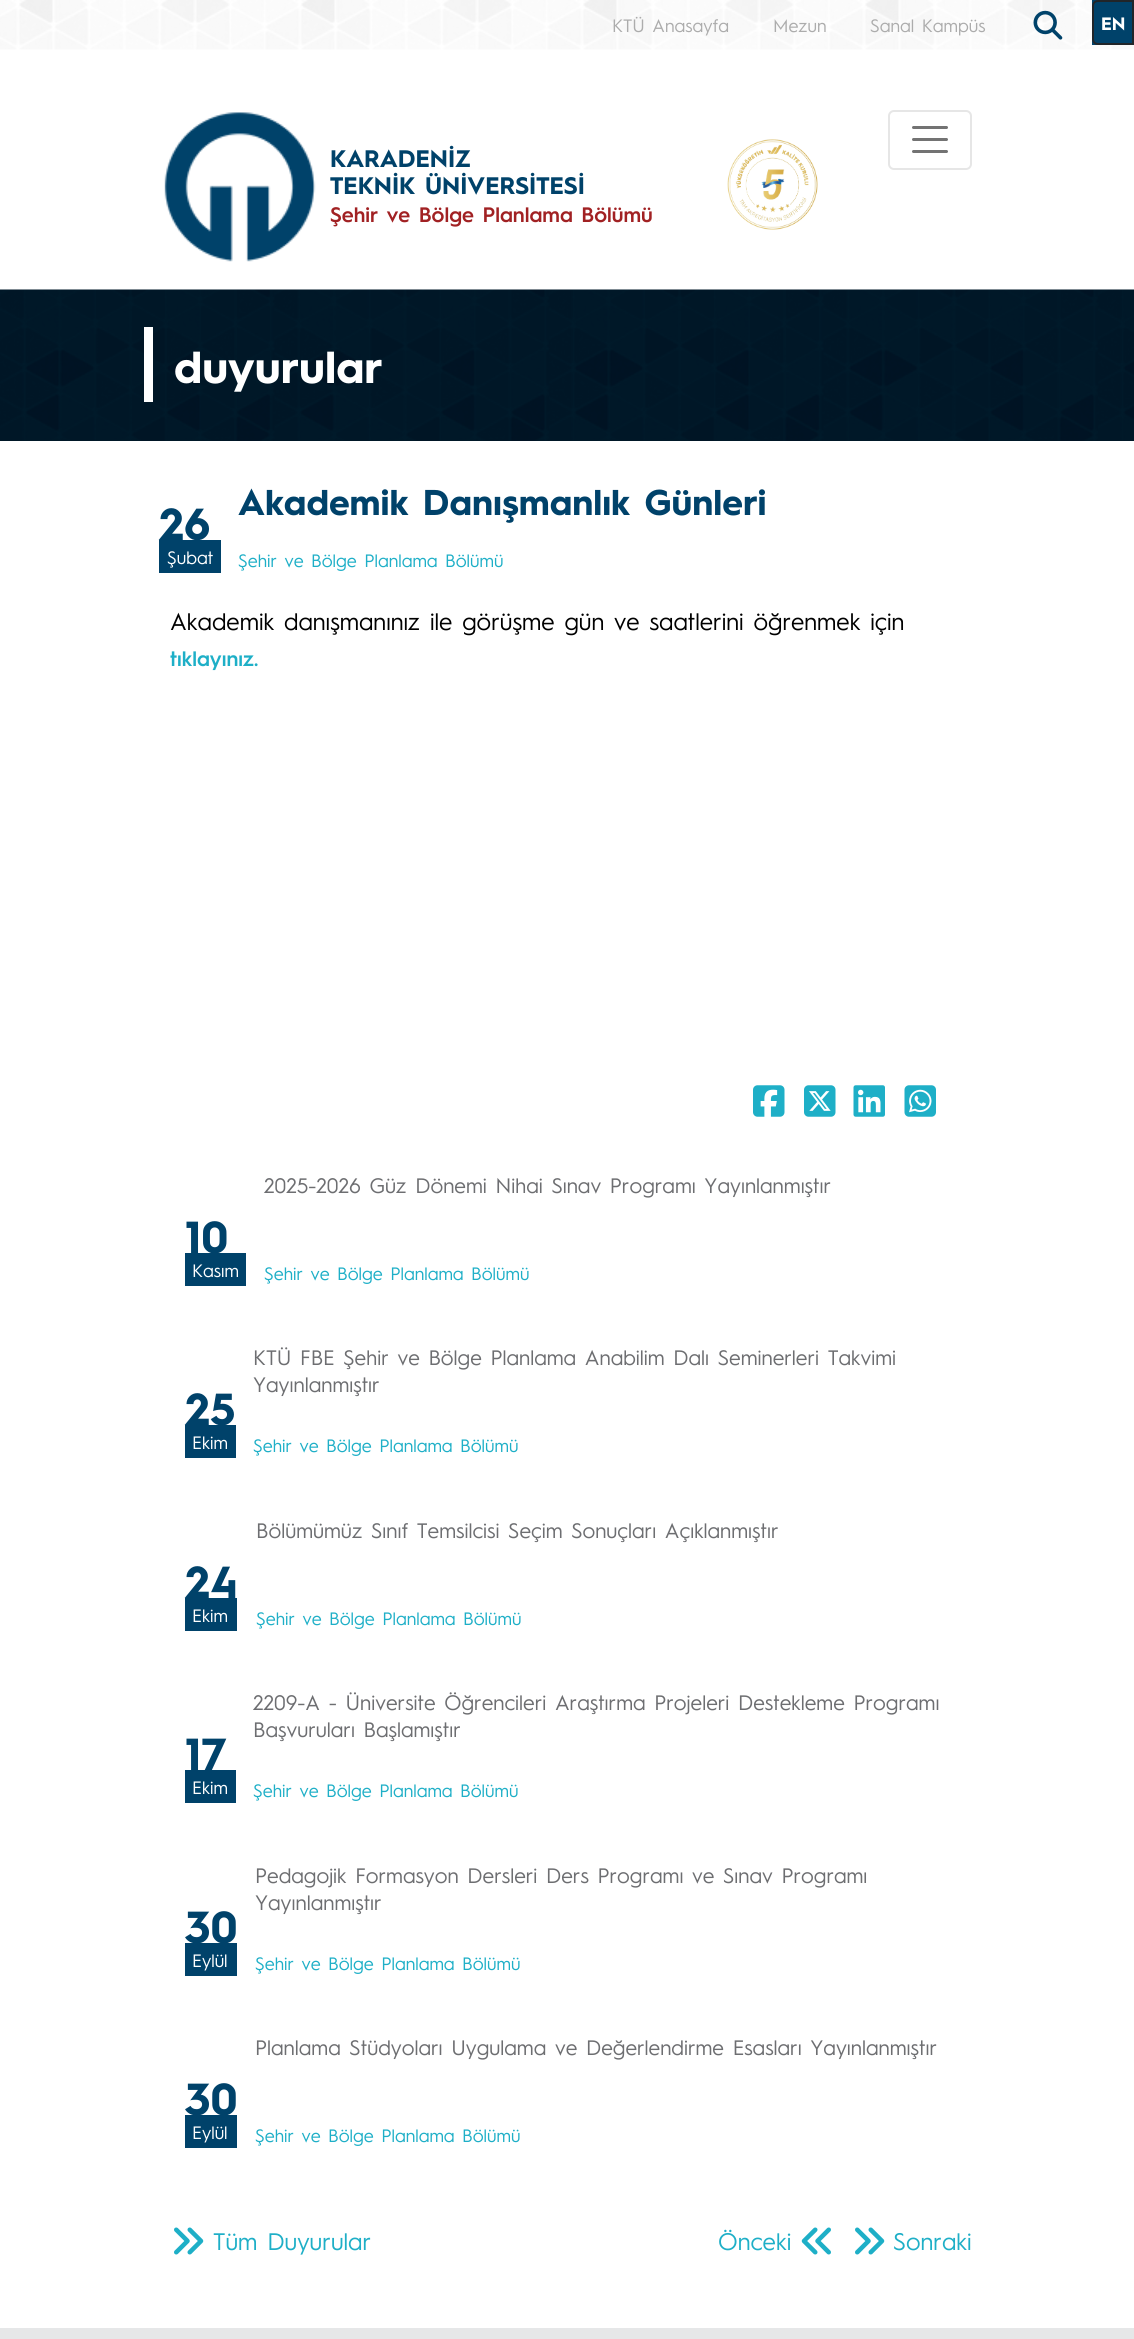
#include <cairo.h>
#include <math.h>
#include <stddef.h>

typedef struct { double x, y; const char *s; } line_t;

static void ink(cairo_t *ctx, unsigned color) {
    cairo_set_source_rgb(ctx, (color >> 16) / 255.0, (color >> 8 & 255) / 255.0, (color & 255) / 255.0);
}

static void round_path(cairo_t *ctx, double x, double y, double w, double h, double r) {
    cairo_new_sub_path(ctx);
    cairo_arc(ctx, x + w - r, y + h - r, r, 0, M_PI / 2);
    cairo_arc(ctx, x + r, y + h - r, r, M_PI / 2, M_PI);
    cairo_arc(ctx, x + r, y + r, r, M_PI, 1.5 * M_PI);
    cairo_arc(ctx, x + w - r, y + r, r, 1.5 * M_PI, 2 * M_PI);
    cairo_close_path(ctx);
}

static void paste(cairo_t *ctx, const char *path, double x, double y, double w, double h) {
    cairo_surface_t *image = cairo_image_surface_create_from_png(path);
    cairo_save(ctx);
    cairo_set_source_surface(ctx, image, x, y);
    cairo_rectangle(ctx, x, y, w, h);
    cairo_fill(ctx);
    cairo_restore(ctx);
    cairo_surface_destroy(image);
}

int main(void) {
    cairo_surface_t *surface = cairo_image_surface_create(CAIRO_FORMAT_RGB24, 1134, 2339);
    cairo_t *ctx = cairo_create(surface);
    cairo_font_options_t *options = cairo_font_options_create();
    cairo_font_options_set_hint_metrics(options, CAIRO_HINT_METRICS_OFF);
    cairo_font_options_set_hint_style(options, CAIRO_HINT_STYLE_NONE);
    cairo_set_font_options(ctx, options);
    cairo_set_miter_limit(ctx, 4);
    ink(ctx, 0xFFFFFF);
    cairo_paint(ctx);
    paste(ctx, "media/1.png", 0, 0, 1134, 50);
    cairo_select_font_face(ctx, "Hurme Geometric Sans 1", CAIRO_FONT_SLANT_NORMAL, CAIRO_FONT_WEIGHT_NORMAL);
    cairo_set_font_size(ctx, 18);
    ink(ctx, 0xACACAC);
    {
        static const line_t items[] = {
            {612, 32, "KTÜ Anasayfa"},
            {773, 32, "Mezun"},
            {870, 32, "Sanal Kampüs"},
        };
        for (size_t i = 0; i < sizeof items / sizeof *items; i++) {
            cairo_move_to(ctx, items[i].x, items[i].y);
            cairo_show_text(ctx, items[i].s);
        }
    }
    paste(ctx, "media/2.png", 1033, 10, 30, 30);
    ink(ctx, 0x00426A);
    cairo_rectangle(ctx, 1092, 0, 40, 45);
    cairo_fill(ctx);
    cairo_new_path(ctx);
    cairo_move_to(ctx, 1098, 1);
    cairo_line_to(ctx, 1133, 1);
    cairo_line_to(ctx, 1133, 44);
    cairo_line_to(ctx, 1098, 44);
    cairo_curve_to(ctx, 1095, 44, 1093, 42, 1093, 39);
    cairo_line_to(ctx, 1093, 6);
    cairo_curve_to(ctx, 1093, 3, 1095, 1, 1098, 1);
    cairo_close_path(ctx);
    ink(ctx, 0x212529);
    cairo_stroke(ctx);
    cairo_select_font_face(ctx, "Hurme Geometric Sans 1", CAIRO_FONT_SLANT_NORMAL, CAIRO_FONT_WEIGHT_BOLD);
    ink(ctx, 0xFFFFFF);
    cairo_move_to(ctx, 1101, 30);
    cairo_show_text(ctx, "EN");
    paste(ctx, "media/3.png", 164, 112, 152, 150);
    cairo_set_font_size(ctx, 24);
    ink(ctx, 0x00426A);
    cairo_move_to(ctx, 330, 167);
    cairo_show_text(ctx, "KARADENİZ");
    cairo_move_to(ctx, 330, 194);
    cairo_show_text(ctx, "TEKNİK ÜNİVERSİTESİ");
    cairo_select_font_face(ctx, "Hurme Geometric Sans 1 SemiBold", CAIRO_FONT_SLANT_NORMAL, CAIRO_FONT_WEIGHT_NORMAL);
    cairo_set_font_size(ctx, 21);
    ink(ctx, 0xA12123);
    cairo_move_to(ctx, 330, 222);
    cairo_show_text(ctx, "Şehir ve Bölge Planlama Bölümü");
    paste(ctx, "media/4.png", 727, 139, 91, 91);
    round_path(ctx, 889, 111, 82, 58, 5);
    ink(ctx, 0xE6E6E6);
    cairo_stroke(ctx);
    cairo_new_path(ctx);
    cairo_move_to(ctx, 913.5, 127.5);
    cairo_line_to(ctx, 946.5, 127.5);
    cairo_move_to(ctx, 913.5, 139.5);
    cairo_line_to(ctx, 946.5, 139.5);
    cairo_move_to(ctx, 913.5, 151.5);
    cairo_line_to(ctx, 946.5, 151.5);
    ink(ctx, 0x737373);
    cairo_set_line_width(ctx, 3);
    cairo_set_line_cap(ctx, CAIRO_LINE_CAP_ROUND);
    cairo_stroke(ctx);
    paste(ctx, "media/5.png", 0, 289, 1134, 152);
    ink(ctx, 0xFFFFFF);
    cairo_rectangle(ctx, 144, 327, 9, 75);
    cairo_fill(ctx);
    cairo_select_font_face(ctx, "Hurme Geometric Sans 1", CAIRO_FONT_SLANT_NORMAL, CAIRO_FONT_WEIGHT_BOLD);
    cairo_set_font_size(ctx, 45);
    cairo_move_to(ctx, 174, 383);
    cairo_show_text(ctx, "duyurular");
    ink(ctx, 0x00426A);
    cairo_rectangle(ctx, 159, 540, 62, 33);
    cairo_fill(ctx);
    cairo_move_to(ctx, 159, 540);
    cairo_show_text(ctx, "26");
    cairo_select_font_face(ctx, "Hurme Geometric Sans 1", CAIRO_FONT_SLANT_NORMAL, CAIRO_FONT_WEIGHT_NORMAL);
    cairo_set_font_size(ctx, 18);
    ink(ctx, 0xFFFFFF);
    cairo_move_to(ctx, 167, 564);
    cairo_show_text(ctx, "Şubat");
    cairo_select_font_face(ctx, "Hurme Geometric Sans 1", CAIRO_FONT_SLANT_NORMAL, CAIRO_FONT_WEIGHT_BOLD);
    cairo_set_font_size(ctx, 36);
    ink(ctx, 0x00426A);
    cairo_move_to(ctx, 238, 515);
    cairo_show_text(ctx, "Akademik Danışmanlık Günleri");
    cairo_select_font_face(ctx, "Hurme Geometric Sans 1", CAIRO_FONT_SLANT_NORMAL, CAIRO_FONT_WEIGHT_NORMAL);
    cairo_set_font_size(ctx, 18);
    ink(ctx, 0x1EAFC7);
    cairo_move_to(ctx, 238, 567);
    cairo_show_text(ctx, "Şehir ve Bölge Planlama Bölümü");
    cairo_set_font_size(ctx, 24);
    ink(ctx, 0x000000);
    cairo_move_to(ctx, 170, 630);
    cairo_show_text(ctx, "Akademik danışmanınız ile görüşme gün ve saatlerini öğrenmek için");
    cairo_select_font_face(ctx, "Hurme Geometric Sans 1 SemiBold", CAIRO_FONT_SLANT_NORMAL, CAIRO_FONT_WEIGHT_NORMAL);
    cairo_set_font_size(ctx, 21);
    ink(ctx, 0x1EAFC7);
    cairo_move_to(ctx, 170, 666);
    cairo_show_text(ctx, "tıklayınız.");
    paste(ctx, "media/6.png", 753, 1085, 32, 32);
    paste(ctx, "media/7.png", 804, 1085, 32, 32);
    paste(ctx, "media/8.png", 853, 1085, 32, 32);
    paste(ctx, "media/9.png", 904, 1085, 32, 32);
    ink(ctx, 0x00426A);
    cairo_rectangle(ctx, 185, 1253, 61, 33);
    cairo_fill(ctx);
    cairo_select_font_face(ctx, "Hurme Geometric Sans 1", CAIRO_FONT_SLANT_NORMAL, CAIRO_FONT_WEIGHT_BOLD);
    cairo_set_font_size(ctx, 45);
    cairo_move_to(ctx, 185, 1253);
    cairo_show_text(ctx, "10");
    cairo_select_font_face(ctx, "Hurme Geometric Sans 1", CAIRO_FONT_SLANT_NORMAL, CAIRO_FONT_WEIGHT_NORMAL);
    cairo_set_font_size(ctx, 18);
    ink(ctx, 0xFFFFFF);
    cairo_move_to(ctx, 192, 1277);
    cairo_show_text(ctx, "Kasım");
    cairo_set_font_size(ctx, 21);
    ink(ctx, 0x6D6E71);
    cairo_move_to(ctx, 264, 1193);
    cairo_show_text(ctx, "2025-2026 Güz Dönemi Nihai Sınav Programı Yayınlanmıştır");
    cairo_set_font_size(ctx, 18);
    ink(ctx, 0x1EAFC7);
    cairo_move_to(ctx, 264, 1280);
    cairo_show_text(ctx, "Şehir ve Bölge Planlama Bölümü");
    ink(ctx, 0x00426A);
    cairo_rectangle(ctx, 185, 1425, 51, 33);
    cairo_fill(ctx);
    cairo_select_font_face(ctx, "Hurme Geometric Sans 1", CAIRO_FONT_SLANT_NORMAL, CAIRO_FONT_WEIGHT_BOLD);
    cairo_set_font_size(ctx, 45);
    cairo_move_to(ctx, 185, 1425);
    cairo_show_text(ctx, "25");
    cairo_select_font_face(ctx, "Hurme Geometric Sans 1", CAIRO_FONT_SLANT_NORMAL, CAIRO_FONT_WEIGHT_NORMAL);
    cairo_set_font_size(ctx, 18);
    ink(ctx, 0xFFFFFF);
    cairo_move_to(ctx, 192, 1449);
    cairo_show_text(ctx, "Ekim");
    cairo_set_font_size(ctx, 21);
    ink(ctx, 0x6D6E71);
    cairo_move_to(ctx, 253, 1365);
    cairo_show_text(ctx, "KTÜ FBE Şehir ve Bölge Planlama Anabilim Dalı Seminerleri Takvimi");
    cairo_move_to(ctx, 253, 1392);
    cairo_show_text(ctx, "Yayınlanmıştır");
    cairo_set_font_size(ctx, 18);
    ink(ctx, 0x1EAFC7);
    cairo_move_to(ctx, 253, 1452);
    cairo_show_text(ctx, "Şehir ve Bölge Planlama Bölümü");
    cairo_select_font_face(ctx, "Hurme Geometric Sans 1", CAIRO_FONT_SLANT_NORMAL, CAIRO_FONT_WEIGHT_BOLD);
    cairo_set_font_size(ctx, 45);
    ink(ctx, 0x00426A);
    cairo_move_to(ctx, 185, 1598);
    cairo_show_text(ctx, "24");
    cairo_rectangle(ctx, 185, 1598, 52, 33);
    cairo_fill(ctx);
    cairo_select_font_face(ctx, "Hurme Geometric Sans 1", CAIRO_FONT_SLANT_NORMAL, CAIRO_FONT_WEIGHT_NORMAL);
    cairo_set_font_size(ctx, 18);
    ink(ctx, 0xFFFFFF);
    cairo_move_to(ctx, 192, 1622);
    cairo_show_text(ctx, "Ekim");
    cairo_set_font_size(ctx, 21);
    ink(ctx, 0x6D6E71);
    cairo_move_to(ctx, 256, 1538);
    cairo_show_text(ctx, "Bölümümüz Sınıf Temsilcisi Seçim Sonuçları Açıklanmıştır");
    cairo_set_font_size(ctx, 18);
    ink(ctx, 0x1EAFC7);
    cairo_move_to(ctx, 256, 1625);
    cairo_show_text(ctx, "Şehir ve Bölge Planlama Bölümü");
    cairo_select_font_face(ctx, "Hurme Geometric Sans 1", CAIRO_FONT_SLANT_NORMAL, CAIRO_FONT_WEIGHT_BOLD);
    cairo_set_font_size(ctx, 45);
    ink(ctx, 0x00426A);
    cairo_move_to(ctx, 185, 1770);
    cairo_show_text(ctx, "17");
    cairo_rectangle(ctx, 185, 1770, 51, 33);
    cairo_fill(ctx);
    cairo_select_font_face(ctx, "Hurme Geometric Sans 1", CAIRO_FONT_SLANT_NORMAL, CAIRO_FONT_WEIGHT_NORMAL);
    cairo_set_font_size(ctx, 18);
    ink(ctx, 0xFFFFFF);
    cairo_move_to(ctx, 192, 1794);
    cairo_show_text(ctx, "Ekim");
    cairo_set_font_size(ctx, 21);
    ink(ctx, 0x6D6E71);
    cairo_move_to(ctx, 253, 1710);
    cairo_show_text(ctx, "2209-A - Üniversite Öğrencileri Araştırma Projeleri Destekleme Programı");
    cairo_move_to(ctx, 253, 1737);
    cairo_show_text(ctx, "Başvuruları Başlamıştır");
    cairo_set_font_size(ctx, 18);
    ink(ctx, 0x1EAFC7);
    cairo_move_to(ctx, 253, 1797);
    cairo_show_text(ctx, "Şehir ve Bölge Planlama Bölümü");
    ink(ctx, 0x00426A);
    cairo_rectangle(ctx, 185, 1943, 52, 33);
    cairo_fill(ctx);
    cairo_select_font_face(ctx, "Hurme Geometric Sans 1", CAIRO_FONT_SLANT_NORMAL, CAIRO_FONT_WEIGHT_BOLD);
    cairo_set_font_size(ctx, 45);
    cairo_move_to(ctx, 185, 1943);
    cairo_show_text(ctx, "30");
    cairo_select_font_face(ctx, "Hurme Geometric Sans 1", CAIRO_FONT_SLANT_NORMAL, CAIRO_FONT_WEIGHT_NORMAL);
    cairo_set_font_size(ctx, 18);
    ink(ctx, 0xFFFFFF);
    cairo_move_to(ctx, 192, 1967);
    cairo_show_text(ctx, "Eylül");
    cairo_set_font_size(ctx, 21);
    ink(ctx, 0x6D6E71);
    cairo_move_to(ctx, 255, 1883);
    cairo_show_text(ctx, "Pedagojik Formasyon Dersleri Ders Programı ve Sınav Programı");
    cairo_move_to(ctx, 255, 1910);
    cairo_show_text(ctx, "Yayınlanmıştır");
    cairo_set_font_size(ctx, 18);
    ink(ctx, 0x1EAFC7);
    cairo_move_to(ctx, 255, 1970);
    cairo_show_text(ctx, "Şehir ve Bölge Planlama Bölümü");
    ink(ctx, 0x00426A);
    cairo_rectangle(ctx, 185, 2115, 52, 33);
    cairo_fill(ctx);
    cairo_select_font_face(ctx, "Hurme Geometric Sans 1", CAIRO_FONT_SLANT_NORMAL, CAIRO_FONT_WEIGHT_BOLD);
    cairo_set_font_size(ctx, 45);
    cairo_move_to(ctx, 185, 2115);
    cairo_show_text(ctx, "30");
    cairo_select_font_face(ctx, "Hurme Geometric Sans 1", CAIRO_FONT_SLANT_NORMAL, CAIRO_FONT_WEIGHT_NORMAL);
    cairo_set_font_size(ctx, 18);
    ink(ctx, 0xFFFFFF);
    cairo_move_to(ctx, 192, 2139);
    cairo_show_text(ctx, "Eylül");
    cairo_set_font_size(ctx, 21);
    ink(ctx, 0x6D6E71);
    cairo_move_to(ctx, 255, 2055);
    cairo_show_text(ctx, "Planlama Stüdyoları Uygulama ve Değerlendirme Esasları Yayınlanmıştır");
    cairo_set_font_size(ctx, 18);
    ink(ctx, 0x1EAFC7);
    cairo_move_to(ctx, 255, 2142);
    cairo_show_text(ctx, "Şehir ve Bölge Planlama Bölümü");
    paste(ctx, "media/10.png", 174, 2227, 30, 28);
    cairo_set_font_size(ctx, 24);
    cairo_move_to(ctx, 213, 2250);
    cairo_show_text(ctx, "Tüm Duyurular");
    cairo_move_to(ctx, 718, 2250);
    cairo_show_text(ctx, "Önceki");
    paste(ctx, "media/11.png", 801, 2227, 30, 28);
    paste(ctx, "media/10.png", 855, 2227, 30, 28);
    cairo_move_to(ctx, 893, 2250);
    cairo_show_text(ctx, "Sonraki");
    ink(ctx, 0xE6E7E8);
    cairo_rectangle(ctx, 0, 2328, 1134, 11);
    cairo_fill(ctx);
    cairo_surface_write_to_png(surface, "image.png");
    cairo_font_options_destroy(options);
    cairo_destroy(ctx);
    cairo_surface_destroy(surface);
    return 0;
}
